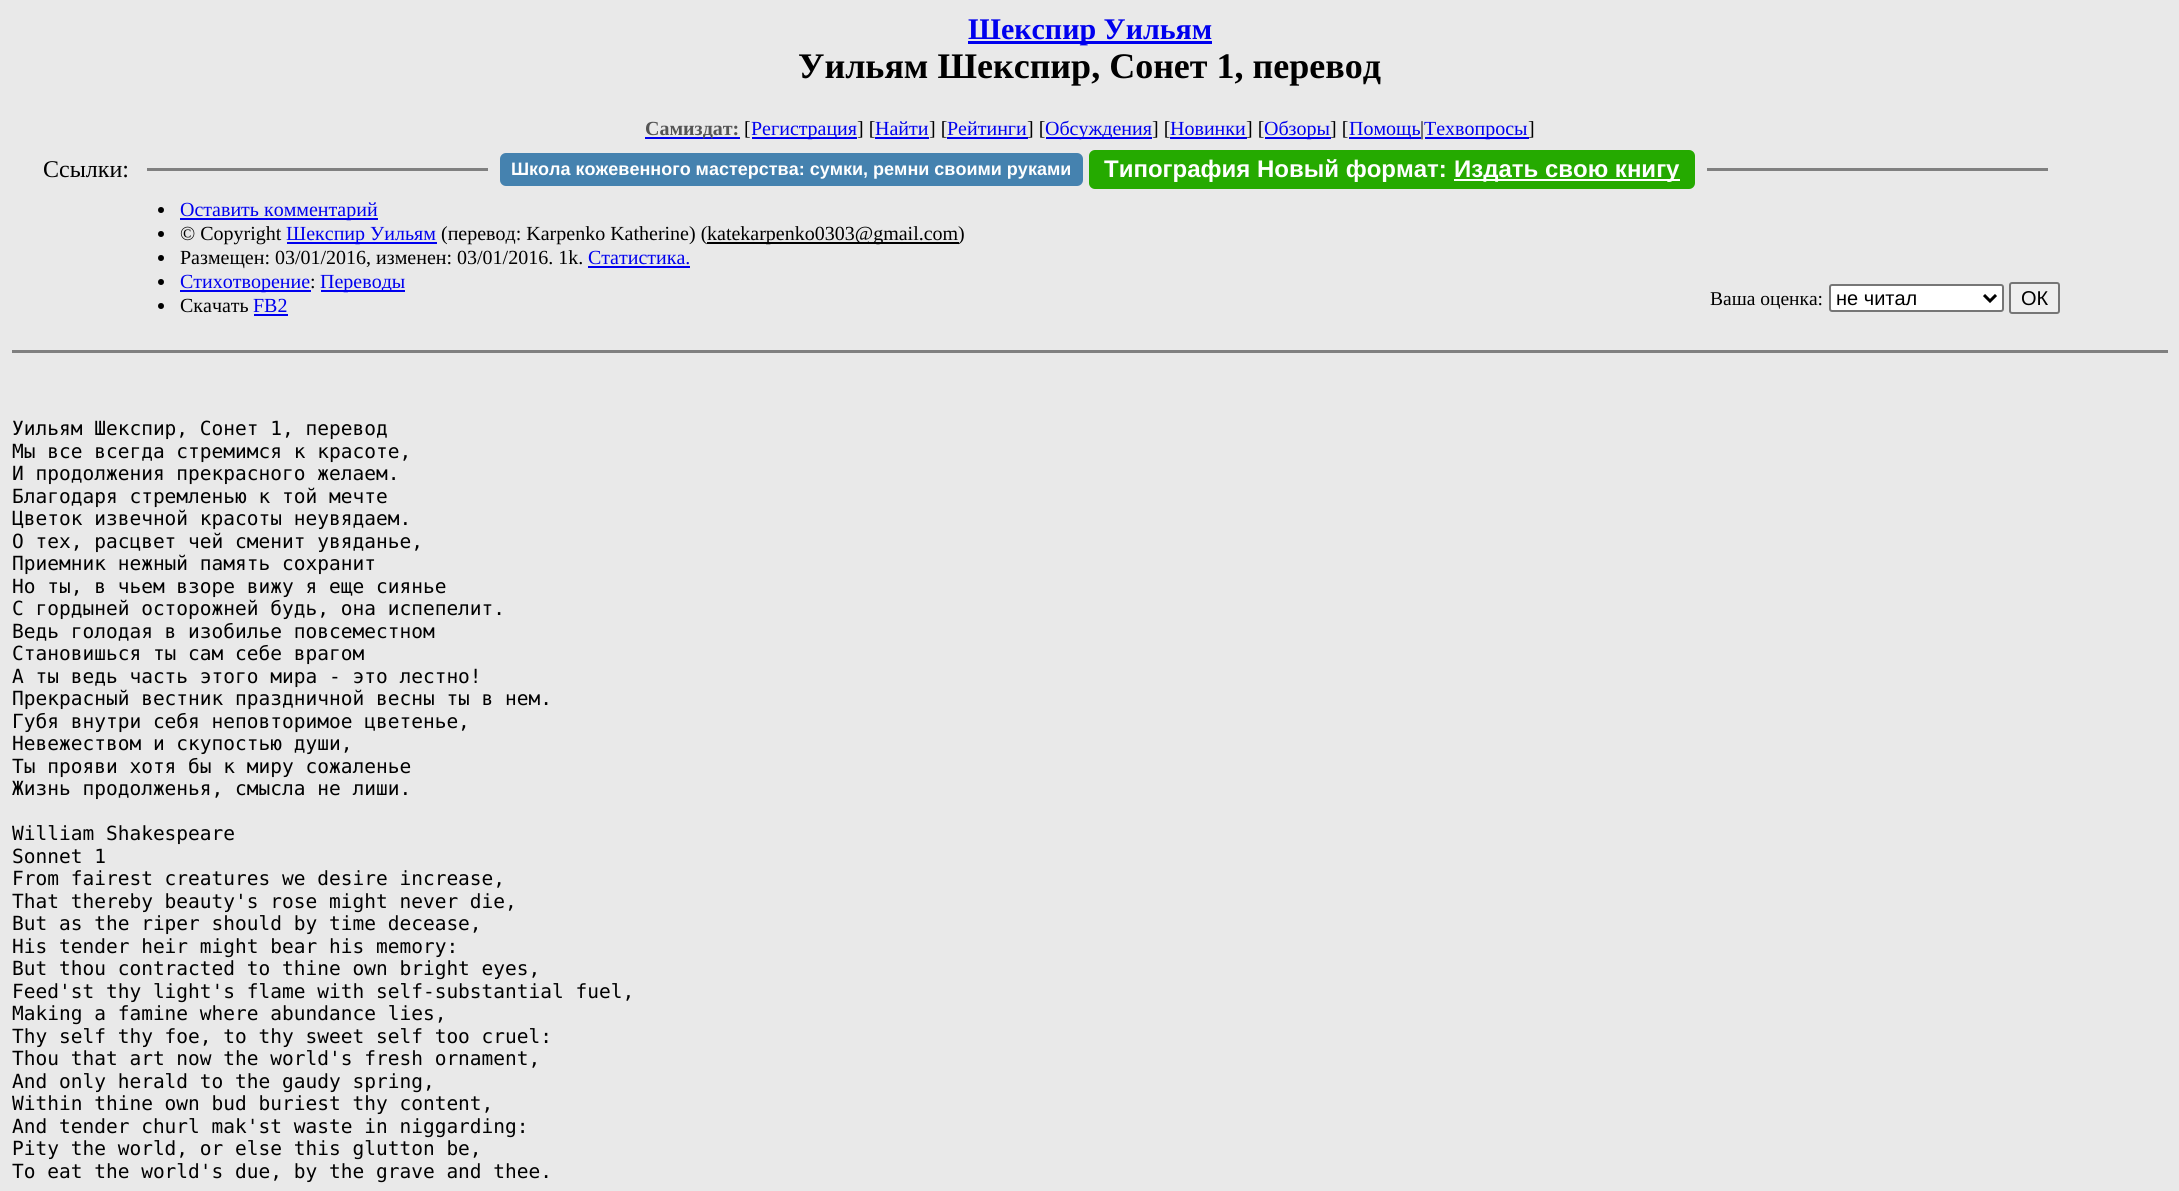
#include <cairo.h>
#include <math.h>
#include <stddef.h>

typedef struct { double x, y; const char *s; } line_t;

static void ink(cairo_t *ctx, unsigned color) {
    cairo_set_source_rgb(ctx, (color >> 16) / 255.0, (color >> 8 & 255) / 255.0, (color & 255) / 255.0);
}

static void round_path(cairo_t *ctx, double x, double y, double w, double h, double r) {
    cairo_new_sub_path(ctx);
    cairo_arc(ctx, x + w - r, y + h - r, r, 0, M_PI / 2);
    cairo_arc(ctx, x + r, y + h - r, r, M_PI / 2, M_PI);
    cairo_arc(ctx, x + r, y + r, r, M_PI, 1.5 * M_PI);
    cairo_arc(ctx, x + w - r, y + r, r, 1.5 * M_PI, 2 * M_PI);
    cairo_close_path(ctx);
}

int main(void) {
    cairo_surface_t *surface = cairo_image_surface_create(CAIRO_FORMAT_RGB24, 2179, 1191);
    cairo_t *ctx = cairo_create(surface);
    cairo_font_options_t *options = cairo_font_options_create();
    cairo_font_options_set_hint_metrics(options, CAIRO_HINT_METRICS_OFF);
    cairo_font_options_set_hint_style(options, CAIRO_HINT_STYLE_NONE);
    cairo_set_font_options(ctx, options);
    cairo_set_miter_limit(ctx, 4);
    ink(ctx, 0xE9E9E9);
    cairo_paint(ctx);
    ink(ctx, 0x0000EE);
    cairo_rectangle(ctx, 968, 41, 244, 3);
    cairo_fill(ctx);
    cairo_select_font_face(ctx, "Liberation Serif", CAIRO_FONT_SLANT_NORMAL, CAIRO_FONT_WEIGHT_BOLD);
    cairo_set_font_size(ctx, 30);
    cairo_move_to(ctx, 968, 39);
    cairo_show_text(ctx, "Шекспир Уильям");
    cairo_set_font_size(ctx, 36);
    ink(ctx, 0x000000);
    cairo_move_to(ctx, 798, 78);
    cairo_show_text(ctx, "Уильям Шекспир, Сонет 1, перевод");
    ink(ctx, 0x0000EE);
    cairo_rectangle(ctx, 645, 137, 95, 2);
    cairo_fill(ctx);
    cairo_set_font_size(ctx, 20);
    ink(ctx, 0x555555);
    cairo_move_to(ctx, 645, 135);
    cairo_show_text(ctx, "Самиздат:");
    cairo_select_font_face(ctx, "Liberation Serif", CAIRO_FONT_SLANT_NORMAL, CAIRO_FONT_WEIGHT_NORMAL);
    ink(ctx, 0x000000);
    cairo_move_to(ctx, 744, 135);
    cairo_show_text(ctx, "[");
    ink(ctx, 0x0000EE);
    cairo_rectangle(ctx, 752, 137, 105, 2);
    cairo_fill(ctx);
    cairo_move_to(ctx, 751, 135);
    cairo_show_text(ctx, "Регистрация");
    ink(ctx, 0x000000);
    cairo_move_to(ctx, 857, 135);
    cairo_show_text(ctx, "] [");
    ink(ctx, 0x0000EE);
    cairo_rectangle(ctx, 875, 137, 54, 2);
    cairo_fill(ctx);
    cairo_move_to(ctx, 875, 135);
    cairo_show_text(ctx, "Найти");
    ink(ctx, 0x000000);
    cairo_move_to(ctx, 929, 135);
    cairo_show_text(ctx, "] [");
    ink(ctx, 0x0000EE);
    cairo_rectangle(ctx, 947, 137, 81, 2);
    cairo_fill(ctx);
    cairo_move_to(ctx, 947, 135);
    cairo_show_text(ctx, "Рейтинги");
    ink(ctx, 0x000000);
    cairo_move_to(ctx, 1027, 135);
    cairo_show_text(ctx, "] [");
    ink(ctx, 0x0000EE);
    cairo_rectangle(ctx, 1046, 137, 106, 2);
    cairo_fill(ctx);
    cairo_move_to(ctx, 1045, 135);
    cairo_show_text(ctx, "Обсуждения");
    ink(ctx, 0x000000);
    cairo_move_to(ctx, 1152, 135);
    cairo_show_text(ctx, "] [");
    ink(ctx, 0x0000EE);
    cairo_rectangle(ctx, 1170, 137, 77, 2);
    cairo_fill(ctx);
    cairo_move_to(ctx, 1170, 135);
    cairo_show_text(ctx, "Новинки");
    ink(ctx, 0x000000);
    cairo_move_to(ctx, 1246, 135);
    cairo_show_text(ctx, "] [");
    ink(ctx, 0x0000EE);
    cairo_rectangle(ctx, 1265, 137, 66, 2);
    cairo_fill(ctx);
    cairo_move_to(ctx, 1264, 135);
    cairo_show_text(ctx, "Обзоры");
    ink(ctx, 0x000000);
    cairo_move_to(ctx, 1330, 135);
    cairo_show_text(ctx, "] [");
    ink(ctx, 0x0000EE);
    cairo_rectangle(ctx, 1349, 137, 72, 2);
    cairo_fill(ctx);
    cairo_move_to(ctx, 1349, 135);
    cairo_show_text(ctx, "Помощь");
    ink(ctx, 0x000000);
    cairo_move_to(ctx, 1420, 135);
    cairo_show_text(ctx, "|");
    ink(ctx, 0x0000EE);
    cairo_rectangle(ctx, 1425, 137, 104, 2);
    cairo_fill(ctx);
    cairo_move_to(ctx, 1424, 135);
    cairo_show_text(ctx, "Техвопросы");
    ink(ctx, 0x000000);
    cairo_move_to(ctx, 1528, 135);
    cairo_show_text(ctx, "]");
    cairo_set_font_size(ctx, 24);
    cairo_move_to(ctx, 43, 177);
    cairo_show_text(ctx, "Ссылки:");
    ink(ctx, 0x808080);
    cairo_rectangle(ctx, 147, 168, 341, 3);
    cairo_fill(ctx);
    ink(ctx, 0x4582AF);
    round_path(ctx, 500, 153, 583, 33, 6);
    cairo_fill(ctx);
    cairo_select_font_face(ctx, "Liberation Sans", CAIRO_FONT_SLANT_NORMAL, CAIRO_FONT_WEIGHT_BOLD);
    cairo_set_font_size(ctx, 18);
    ink(ctx, 0xFFFFFF);
    cairo_move_to(ctx, 511, 175);
    cairo_show_text(ctx, "Школа кожевенного мастерства: сумки, ремни своими руками");
    ink(ctx, 0x25AA00);
    round_path(ctx, 1089, 150, 606, 39, 6);
    cairo_fill(ctx);
    cairo_set_font_size(ctx, 24);
    ink(ctx, 0xFFFFFF);
    cairo_move_to(ctx, 1104, 177);
    cairo_show_text(ctx, "Типография Новый формат:");
    cairo_rectangle(ctx, 1454, 179, 226, 2);
    cairo_fill(ctx);
    cairo_move_to(ctx, 1454, 177);
    cairo_show_text(ctx, "Издать свою книгу");
    ink(ctx, 0x808080);
    cairo_rectangle(ctx, 1707, 168, 341, 3);
    cairo_fill(ctx);
    ink(ctx, 0x000000);
    cairo_arc(ctx, 161, 210, 3, 0, 2 * M_PI);
    cairo_fill(ctx);
    ink(ctx, 0x0000EE);
    cairo_rectangle(ctx, 180, 218, 198, 2);
    cairo_fill(ctx);
    cairo_select_font_face(ctx, "Liberation Serif", CAIRO_FONT_SLANT_NORMAL, CAIRO_FONT_WEIGHT_NORMAL);
    cairo_set_font_size(ctx, 20);
    cairo_move_to(ctx, 180, 216);
    cairo_show_text(ctx, "Оставить комментарий");
    ink(ctx, 0x000000);
    cairo_new_path(ctx);
    cairo_arc(ctx, 161, 234, 3, 0, 2 * M_PI);
    cairo_fill(ctx);
    cairo_move_to(ctx, 180, 240);
    cairo_show_text(ctx, "© Copyright");
    ink(ctx, 0x0000EE);
    cairo_rectangle(ctx, 287, 242, 150, 2);
    cairo_fill(ctx);
    cairo_move_to(ctx, 286, 240);
    cairo_show_text(ctx, "Шекспир Уильям");
    ink(ctx, 0x000000);
    cairo_move_to(ctx, 441, 240);
    cairo_show_text(ctx, "(перевод: Karpenko Katherine) (");
    cairo_rectangle(ctx, 707, 242, 252, 2);
    cairo_fill(ctx);
    cairo_move_to(ctx, 707, 240);
    cairo_show_text(ctx, "katekarpenko0303@gmail.com)");
    cairo_new_path(ctx);
    cairo_arc(ctx, 161, 258, 3, 0, 2 * M_PI);
    cairo_fill(ctx);
    cairo_move_to(ctx, 180, 264);
    cairo_show_text(ctx, "Размещен: 03/01/2016, изменен: 03/01/2016. 1k.");
    ink(ctx, 0x0000EE);
    cairo_move_to(ctx, 588, 264);
    cairo_show_text(ctx, "Статистика.");
    cairo_rectangle(ctx, 588, 266, 102, 2);
    cairo_fill(ctx);
    ink(ctx, 0x000000);
    cairo_arc(ctx, 161, 282, 3, 0, 2 * M_PI);
    cairo_fill(ctx);
    ink(ctx, 0x0000EE);
    cairo_rectangle(ctx, 180, 290, 131, 2);
    cairo_fill(ctx);
    cairo_move_to(ctx, 180, 288);
    cairo_show_text(ctx, "Стихотворение");
    ink(ctx, 0x000000);
    cairo_move_to(ctx, 310, 288);
    cairo_show_text(ctx, ":");
    ink(ctx, 0x0000EE);
    cairo_rectangle(ctx, 321, 290, 84, 2);
    cairo_fill(ctx);
    cairo_move_to(ctx, 320, 288);
    cairo_show_text(ctx, "Переводы");
    ink(ctx, 0x000000);
    cairo_new_path(ctx);
    cairo_arc(ctx, 161, 306, 3, 0, 2 * M_PI);
    cairo_fill(ctx);
    cairo_move_to(ctx, 180, 312);
    cairo_show_text(ctx, "Скачать");
    ink(ctx, 0x0000EE);
    cairo_move_to(ctx, 253, 312);
    cairo_show_text(ctx, "FB2");
    cairo_rectangle(ctx, 254, 314, 34, 2);
    cairo_fill(ctx);
    cairo_set_font_size(ctx, 19.5);
    ink(ctx, 0x000000);
    cairo_move_to(ctx, 1710, 305);
    cairo_show_text(ctx, "Ваша оценка:");
    ink(ctx, 0xFFFFFF);
    round_path(ctx, 1830, 285, 173, 26, 2);
    cairo_fill_preserve(ctx);
    ink(ctx, 0x767676);
    cairo_stroke(ctx);
    cairo_new_path(ctx);
    cairo_move_to(ctx, 1984, 295);
    cairo_line_to(ctx, 1990, 301);
    cairo_line_to(ctx, 1996, 295);
    ink(ctx, 0x000000);
    cairo_set_line_width(ctx, 3);
    cairo_stroke(ctx);
    cairo_select_font_face(ctx, "Liberation Sans", CAIRO_FONT_SLANT_NORMAL, CAIRO_FONT_WEIGHT_NORMAL);
    cairo_set_font_size(ctx, 20);
    cairo_move_to(ctx, 1836, 305);
    cairo_show_text(ctx, "не читал");
    ink(ctx, 0xEFEFEF);
    round_path(ctx, 2010, 283, 49, 30, 2);
    cairo_fill_preserve(ctx);
    ink(ctx, 0x767676);
    cairo_set_line_width(ctx, 2);
    cairo_stroke(ctx);
    ink(ctx, 0x000000);
    cairo_move_to(ctx, 2021, 305);
    cairo_show_text(ctx, "ОК");
    ink(ctx, 0x808080);
    cairo_rectangle(ctx, 12, 350, 2156, 3);
    cairo_fill(ctx);
    cairo_select_font_face(ctx, "DejaVu Sans Mono", CAIRO_FONT_SLANT_NORMAL, CAIRO_FONT_WEIGHT_NORMAL);
    cairo_set_font_size(ctx, 19.5);
    ink(ctx, 0x000000);
    {
        static const line_t items[] = {
            {12, 435, "Уильям Шекспир, Сонет 1, перевод"},
            {12, 458, "Мы все всегда стремимся к красоте,"},
            {12, 480, "И продолжения прекрасного желаем."},
            {12, 503, "Благодаря стремленью к той мечте"},
            {12, 525, "Цветок извечной красоты неувядаем."},
            {12, 548, "О тех, расцвет чей сменит увяданье,"},
            {12, 570, "Приемник нежный память сохранит"},
            {12, 593, "Но ты, в чьем взоре вижу я еще сиянье"},
            {12, 615, "С гордыней осторожней будь, она испепелит."},
            {12, 638, "Ведь голодая в изобилье повсеместном"},
            {12, 660, "Становишься ты сам себе врагом"},
            {12, 683, "А ты ведь часть этого мира - это лестно!"},
            {12, 705, "Прекрасный вестник праздничной весны ты в нем."},
            {12, 728, "Губя внутри себя неповторимое цветенье,"},
            {12, 750, "Невежеством и скупостью души,"},
            {12, 773, "Ты прояви хотя бы к миру сожаленье"},
            {12, 795, "Жизнь продолженья, смысла не лиши."},
            {12, 840, "William Shakespeare"},
            {12, 863, "Sonnet 1"},
            {12, 885, "From fairest creatures we desire increase,"},
            {12, 908, "That thereby beauty's rose might never die,"},
            {12, 930, "But as the riper should by time decease,"},
            {12, 953, "His tender heir might bear his memory:"},
            {12, 975, "But thou contracted to thine own bright eyes,"},
            {12, 998, "Feed'st thy light's flame with self-substantial fuel,"},
            {12, 1020, "Making a famine where abundance lies,"},
            {12, 1043, "Thy self thy foe, to thy sweet self too cruel:"},
            {12, 1065, "Thou that art now the world's fresh ornament,"},
            {12, 1088, "And only herald to the gaudy spring,"},
            {12, 1110, "Within thine own bud buriest thy content,"},
            {12, 1133, "And tender churl mak'st waste in niggarding:"},
            {12, 1155, "Pity the world, or else this glutton be,"},
            {12, 1178, "To eat the world's due, by the grave and thee."},
        };
        for (size_t i = 0; i < sizeof items / sizeof *items; i++) {
            cairo_move_to(ctx, items[i].x, items[i].y);
            cairo_show_text(ctx, items[i].s);
        }
    }
    cairo_surface_write_to_png(surface, "image.png");
    cairo_font_options_destroy(options);
    cairo_destroy(ctx);
    cairo_surface_destroy(surface);
    return 0;
}
